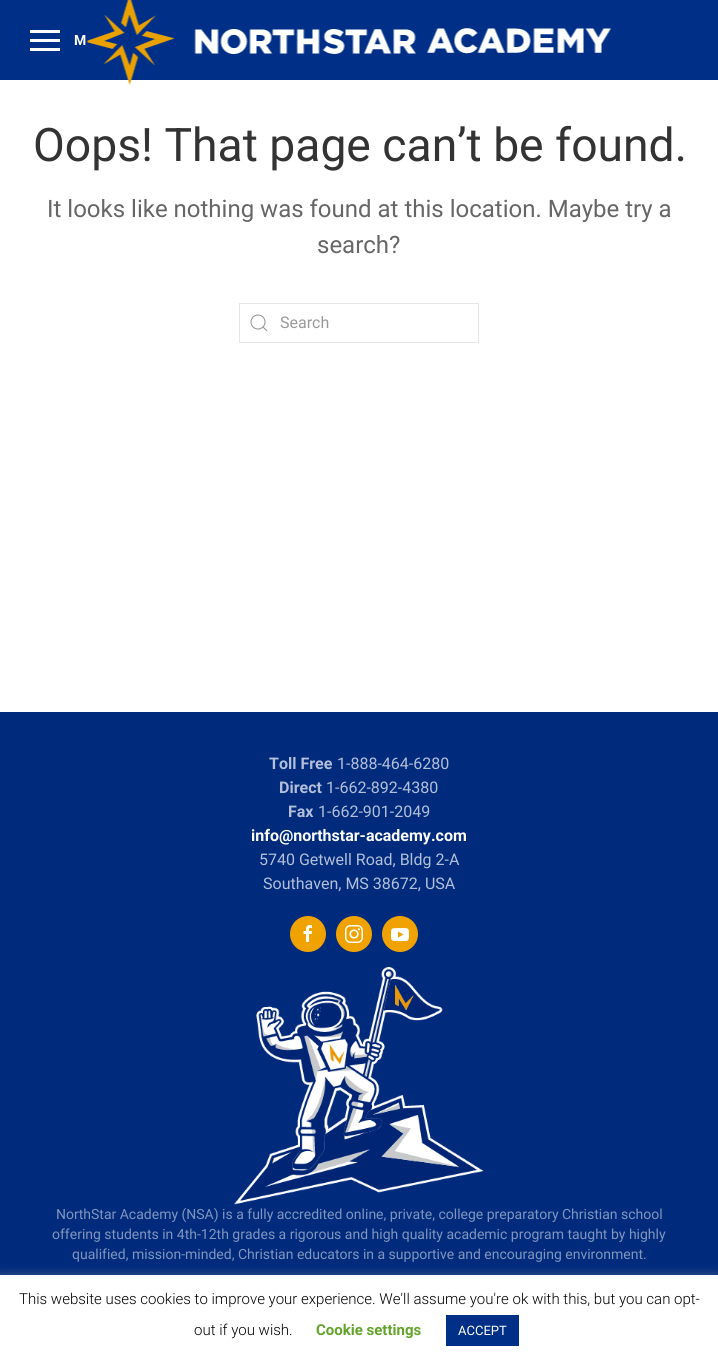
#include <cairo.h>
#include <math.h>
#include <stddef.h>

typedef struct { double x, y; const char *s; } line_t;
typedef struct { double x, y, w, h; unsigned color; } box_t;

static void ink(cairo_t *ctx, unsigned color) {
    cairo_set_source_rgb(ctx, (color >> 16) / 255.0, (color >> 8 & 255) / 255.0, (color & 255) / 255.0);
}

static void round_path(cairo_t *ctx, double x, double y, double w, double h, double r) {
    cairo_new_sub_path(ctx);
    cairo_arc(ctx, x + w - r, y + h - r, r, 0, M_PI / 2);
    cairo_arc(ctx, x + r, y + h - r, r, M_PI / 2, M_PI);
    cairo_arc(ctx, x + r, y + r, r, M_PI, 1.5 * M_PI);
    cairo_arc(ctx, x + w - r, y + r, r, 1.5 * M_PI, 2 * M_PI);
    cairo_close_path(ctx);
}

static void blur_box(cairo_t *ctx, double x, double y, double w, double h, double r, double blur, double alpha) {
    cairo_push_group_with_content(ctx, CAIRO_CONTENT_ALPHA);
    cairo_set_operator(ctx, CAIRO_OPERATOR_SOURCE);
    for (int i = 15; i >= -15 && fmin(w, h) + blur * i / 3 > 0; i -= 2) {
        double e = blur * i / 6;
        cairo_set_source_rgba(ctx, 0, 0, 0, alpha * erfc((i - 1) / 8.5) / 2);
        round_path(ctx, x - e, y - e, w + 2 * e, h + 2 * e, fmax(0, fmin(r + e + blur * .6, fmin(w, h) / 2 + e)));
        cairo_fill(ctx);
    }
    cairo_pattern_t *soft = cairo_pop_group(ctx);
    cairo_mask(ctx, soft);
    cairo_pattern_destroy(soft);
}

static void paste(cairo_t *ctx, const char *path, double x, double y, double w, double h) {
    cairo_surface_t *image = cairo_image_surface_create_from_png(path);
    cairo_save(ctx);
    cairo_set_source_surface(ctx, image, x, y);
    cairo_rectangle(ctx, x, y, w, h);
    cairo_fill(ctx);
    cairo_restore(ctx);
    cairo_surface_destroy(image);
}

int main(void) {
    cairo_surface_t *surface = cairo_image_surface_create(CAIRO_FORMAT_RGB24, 718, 1363);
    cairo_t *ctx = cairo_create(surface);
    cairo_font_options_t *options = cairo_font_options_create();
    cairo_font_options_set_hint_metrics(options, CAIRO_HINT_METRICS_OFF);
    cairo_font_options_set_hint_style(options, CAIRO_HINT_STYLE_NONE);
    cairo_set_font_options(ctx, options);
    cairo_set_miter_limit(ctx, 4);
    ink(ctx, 0xFFFFFF);
    cairo_paint(ctx);
    {
        static const box_t items[] = {
            {0, 0, 718, 80, 0x002F87},
            {30, 30, 30, 3, 0xFFFFFF},
            {30, 39, 30, 3, 0xFFFFFF},
            {30, 48, 30, 3, 0xFFFFFF},
        };
        for (size_t i = 0; i < sizeof items / sizeof *items; i++) {
            ink(ctx, items[i].color);
            cairo_rectangle(ctx, items[i].x, items[i].y, items[i].w, items[i].h);
            cairo_fill(ctx);
        }
    }
    cairo_select_font_face(ctx, "Roboto", CAIRO_FONT_SLANT_NORMAL, CAIRO_FONT_WEIGHT_BOLD);
    cairo_set_font_size(ctx, 14);
    cairo_move_to(ctx, 74, 45);
    cairo_show_text(ctx, "M");
    paste(ctx, "media/1.png", 87, 0, 525, 85);
    cairo_select_font_face(ctx, "Roboto", CAIRO_FONT_SLANT_NORMAL, CAIRO_FONT_WEIGHT_NORMAL);
    cairo_set_font_size(ctx, 46.25);
    ink(ctx, 0x333333);
    cairo_move_to(ctx, 33, 161);
    cairo_show_text(ctx, "Oops! That page can’t be found.");
    cairo_set_font_size(ctx, 24);
    ink(ctx, 0x666666);
    cairo_move_to(ctx, 47, 217);
    cairo_show_text(ctx, "It looks like nothing was found at this location. Maybe try a");
    cairo_move_to(ctx, 317, 253);
    cairo_show_text(ctx, "search?");
    cairo_rectangle(ctx, 239.5, 303.5, 239, 39);
    ink(ctx, 0xE5E5E5);
    cairo_set_line_width(ctx, 1);
    cairo_stroke(ctx);
    cairo_arc(ctx, 258, 322, 7, 0, 2 * M_PI);
    ink(ctx, 0x999999);
    cairo_set_line_width(ctx, 1.1);
    cairo_stroke(ctx);
    cairo_new_path(ctx);
    cairo_move_to(ctx, 263, 327);
    cairo_line_to(ctx, 267, 331);
    cairo_close_path(ctx);
    cairo_stroke(ctx);
    cairo_set_font_size(ctx, 16);
    cairo_move_to(ctx, 280, 328);
    cairo_show_text(ctx, "Search");
    ink(ctx, 0x002A7C);
    cairo_rectangle(ctx, 0, 712, 718, 563);
    cairo_fill(ctx);
    cairo_select_font_face(ctx, "Roboto", CAIRO_FONT_SLANT_NORMAL, CAIRO_FONT_WEIGHT_BOLD);
    ink(ctx, 0xB3BFD8);
    cairo_move_to(ctx, 269, 769);
    cairo_show_text(ctx, "Toll Free");
    cairo_select_font_face(ctx, "Roboto", CAIRO_FONT_SLANT_NORMAL, CAIRO_FONT_WEIGHT_NORMAL);
    cairo_move_to(ctx, 337, 769);
    cairo_show_text(ctx, "1-888-464-6280");
    cairo_select_font_face(ctx, "Roboto", CAIRO_FONT_SLANT_NORMAL, CAIRO_FONT_WEIGHT_BOLD);
    cairo_move_to(ctx, 279, 793);
    cairo_show_text(ctx, "Direct");
    cairo_select_font_face(ctx, "Roboto", CAIRO_FONT_SLANT_NORMAL, CAIRO_FONT_WEIGHT_NORMAL);
    cairo_move_to(ctx, 326, 793);
    cairo_show_text(ctx, "1-662-892-4380");
    cairo_select_font_face(ctx, "Roboto", CAIRO_FONT_SLANT_NORMAL, CAIRO_FONT_WEIGHT_BOLD);
    cairo_move_to(ctx, 288, 817);
    cairo_show_text(ctx, "Fax");
    cairo_select_font_face(ctx, "Roboto", CAIRO_FONT_SLANT_NORMAL, CAIRO_FONT_WEIGHT_NORMAL);
    cairo_move_to(ctx, 318, 817);
    cairo_show_text(ctx, "1-662-901-2049");
    cairo_select_font_face(ctx, "Roboto", CAIRO_FONT_SLANT_NORMAL, CAIRO_FONT_WEIGHT_BOLD);
    ink(ctx, 0xFFFFFF);
    cairo_move_to(ctx, 251, 841);
    cairo_show_text(ctx, "info@northstar-academy.com");
    cairo_select_font_face(ctx, "Roboto", CAIRO_FONT_SLANT_NORMAL, CAIRO_FONT_WEIGHT_NORMAL);
    ink(ctx, 0xB3BFD8);
    cairo_move_to(ctx, 259, 865);
    cairo_show_text(ctx, "5740 Getwell Road, Bldg 2-A");
    cairo_move_to(ctx, 263, 889);
    cairo_show_text(ctx, "Southaven, MS 38672, USA");
    ink(ctx, 0xF0A300);
    cairo_new_path(ctx);
    cairo_arc(ctx, 308, 934, 18, 0, 2 * M_PI);
    cairo_fill(ctx);
    paste(ctx, "media/2.png", 303, 925, 9, 17);
    cairo_arc(ctx, 354, 934, 18, 0, 2 * M_PI);
    cairo_fill(ctx);
    paste(ctx, "media/3.png", 345, 925, 18, 18);
    cairo_arc(ctx, 400, 934, 18, 0, 2 * M_PI);
    cairo_fill(ctx);
    paste(ctx, "media/4.png", 391, 928, 18, 14);
    paste(ctx, "media/5.png", 234, 967, 250, 238);
    cairo_set_font_size(ctx, 14);
    ink(ctx, 0x8095BE);
    {
        static const line_t items[] = {
            {56, 1219, "NorthStar Academy (NSA) is a fully accredited online, private, college preparatory Christian school"},
            {52, 1239, "offering students in 4th-12th grades a rigorous and high quality academic program taught by highly"},
            {72, 1259, "qualified, mission-minded, Christian educators in a supportive and encouraging environment."},
        };
        for (size_t i = 0; i < sizeof items / sizeof *items; i++) {
            cairo_move_to(ctx, items[i].x, items[i].y);
            cairo_show_text(ctx, items[i].s);
        }
    }
    ink(ctx, 0xACABAB);
    blur_box(ctx, 0, 1274, 718, 88, 0, 5, 0.3);
    ink(ctx, 0xFFFFFF);
    cairo_rectangle(ctx, 0, 1275, 718, 88);
    cairo_fill(ctx);
    cairo_select_font_face(ctx, "Roboto Light", CAIRO_FONT_SLANT_NORMAL, CAIRO_FONT_WEIGHT_NORMAL);
    cairo_set_font_size(ctx, 15);
    ink(ctx, 0x000000);
    cairo_move_to(ctx, 19, 1304);
    cairo_show_text(ctx, "This website uses cookies to improve your experience. We'll assume you're ok with this, but you can opt-");
    cairo_move_to(ctx, 194, 1335);
    cairo_show_text(ctx, "out if you wish.");
    cairo_select_font_face(ctx, "Roboto", CAIRO_FONT_SLANT_NORMAL, CAIRO_FONT_WEIGHT_BOLD);
    ink(ctx, 0x62A329);
    cairo_move_to(ctx, 316, 1335);
    cairo_show_text(ctx, "Cookie settings");
    ink(ctx, 0x002F87);
    cairo_rectangle(ctx, 446, 1315, 73, 31);
    cairo_fill(ctx);
    cairo_select_font_face(ctx, "Roboto", CAIRO_FONT_SLANT_NORMAL, CAIRO_FONT_WEIGHT_NORMAL);
    cairo_set_font_size(ctx, 13);
    ink(ctx, 0xFFFFFF);
    cairo_move_to(ctx, 458, 1335);
    cairo_show_text(ctx, "ACCEPT");
    cairo_surface_write_to_png(surface, "image.png");
    cairo_font_options_destroy(options);
    cairo_destroy(ctx);
    cairo_surface_destroy(surface);
    return 0;
}
